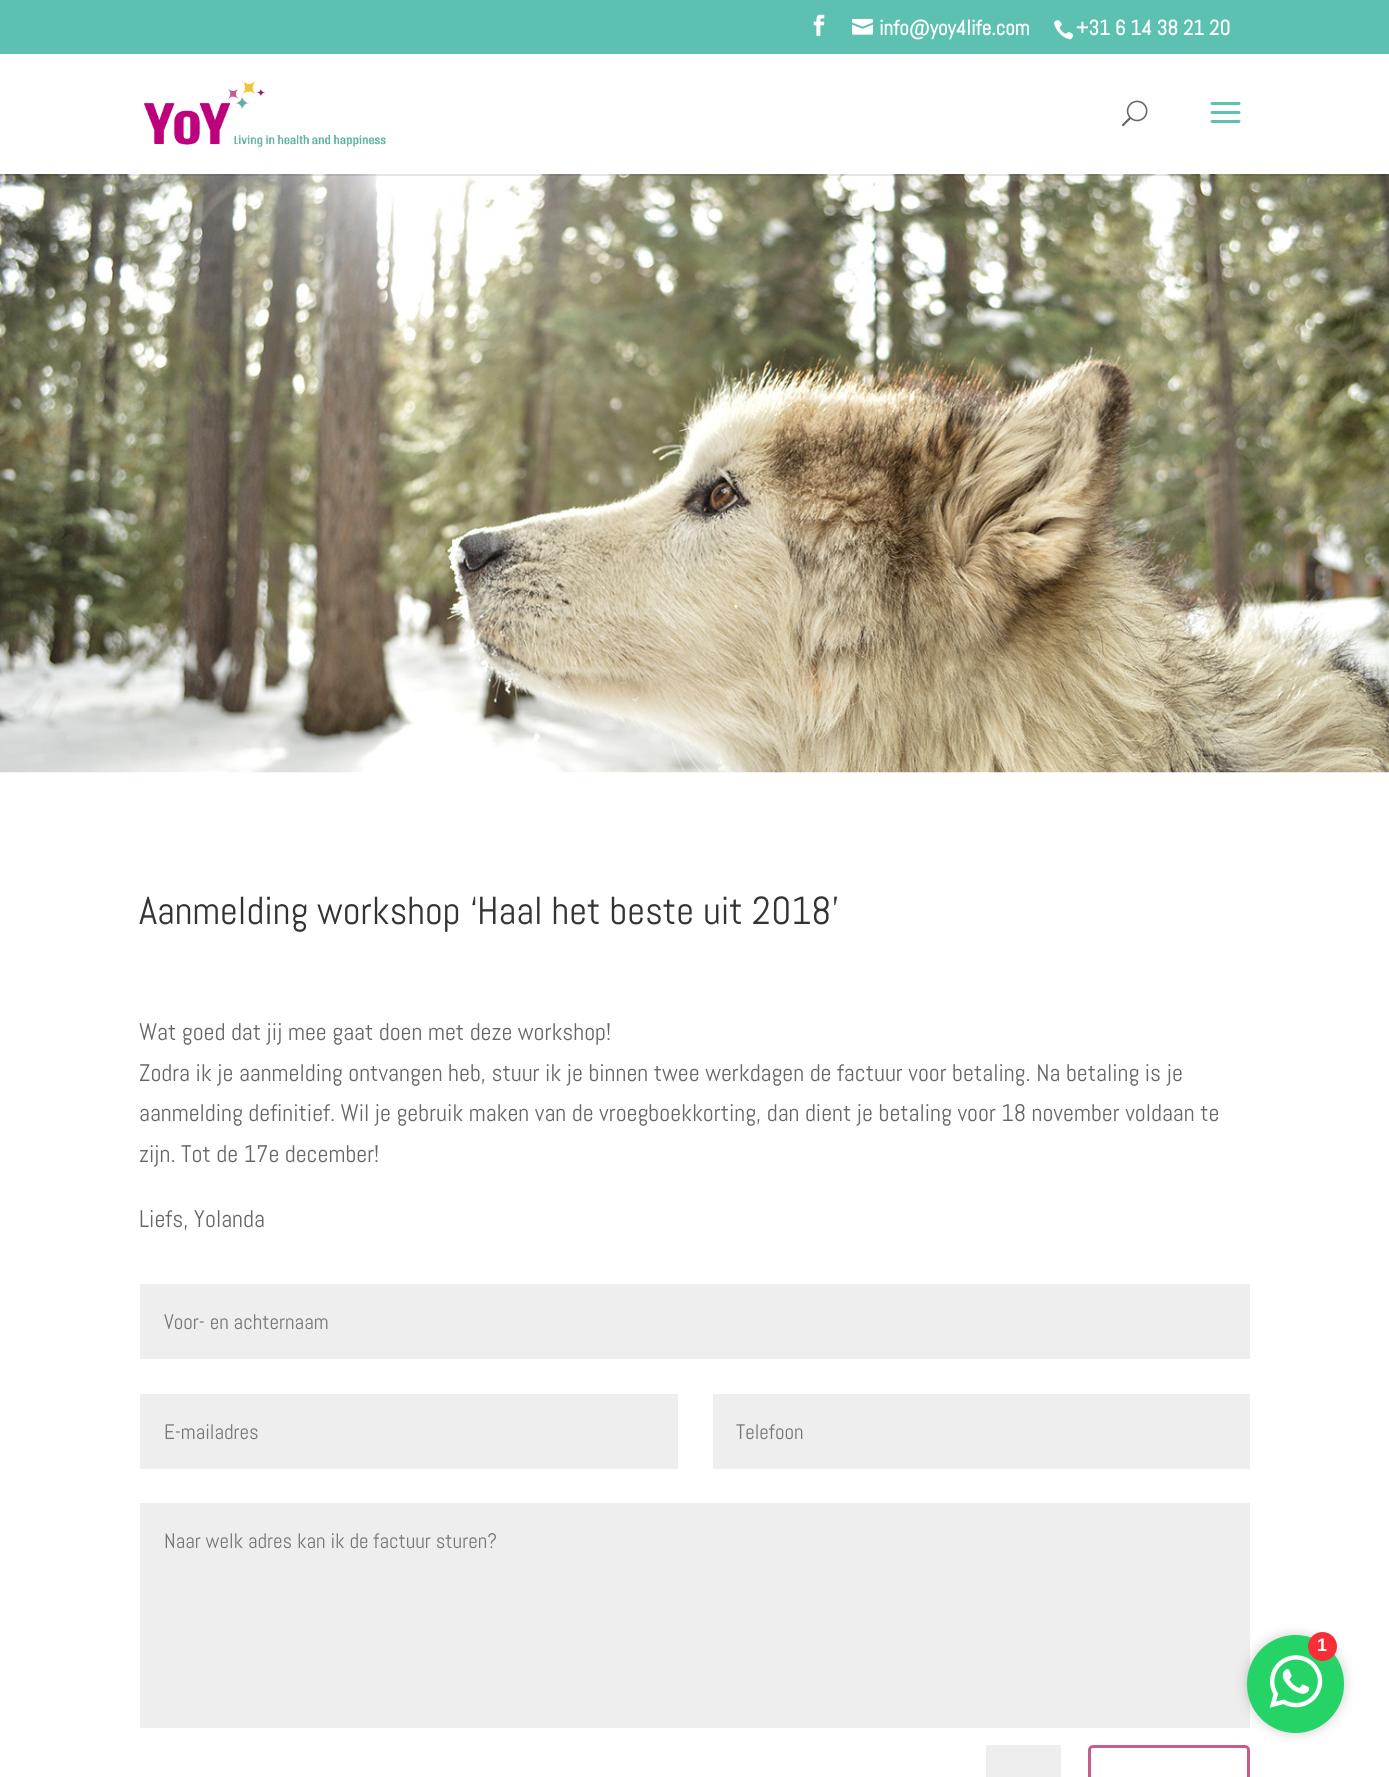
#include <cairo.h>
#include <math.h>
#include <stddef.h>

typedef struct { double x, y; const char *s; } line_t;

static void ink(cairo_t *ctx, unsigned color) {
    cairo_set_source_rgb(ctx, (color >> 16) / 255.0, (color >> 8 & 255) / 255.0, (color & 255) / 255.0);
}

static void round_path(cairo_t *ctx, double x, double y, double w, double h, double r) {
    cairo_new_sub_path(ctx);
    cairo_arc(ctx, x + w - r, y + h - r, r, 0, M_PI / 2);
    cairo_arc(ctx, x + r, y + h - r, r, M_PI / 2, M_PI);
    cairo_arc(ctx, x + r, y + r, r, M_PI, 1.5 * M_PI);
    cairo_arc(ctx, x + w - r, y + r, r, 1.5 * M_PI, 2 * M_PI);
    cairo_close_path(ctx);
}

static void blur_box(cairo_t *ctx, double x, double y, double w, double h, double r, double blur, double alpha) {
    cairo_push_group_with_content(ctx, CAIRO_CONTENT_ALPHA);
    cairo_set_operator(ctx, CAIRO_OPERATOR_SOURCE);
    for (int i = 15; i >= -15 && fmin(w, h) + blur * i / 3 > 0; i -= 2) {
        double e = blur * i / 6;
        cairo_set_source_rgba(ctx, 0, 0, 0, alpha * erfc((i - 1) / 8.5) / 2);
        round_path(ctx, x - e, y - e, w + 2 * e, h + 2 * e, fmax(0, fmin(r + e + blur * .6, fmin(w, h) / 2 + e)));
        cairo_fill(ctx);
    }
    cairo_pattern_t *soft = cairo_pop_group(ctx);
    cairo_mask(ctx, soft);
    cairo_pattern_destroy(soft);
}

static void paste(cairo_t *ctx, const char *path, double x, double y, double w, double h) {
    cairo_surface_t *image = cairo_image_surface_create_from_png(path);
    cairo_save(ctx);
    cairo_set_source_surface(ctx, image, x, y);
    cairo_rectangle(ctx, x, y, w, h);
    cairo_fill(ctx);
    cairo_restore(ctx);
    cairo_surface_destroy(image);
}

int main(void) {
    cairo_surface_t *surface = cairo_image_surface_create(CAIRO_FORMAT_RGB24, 1389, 1777);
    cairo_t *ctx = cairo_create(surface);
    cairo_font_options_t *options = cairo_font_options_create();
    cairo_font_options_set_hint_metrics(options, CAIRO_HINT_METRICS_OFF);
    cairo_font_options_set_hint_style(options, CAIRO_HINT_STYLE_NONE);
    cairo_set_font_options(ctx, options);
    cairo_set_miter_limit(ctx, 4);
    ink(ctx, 0xFFFFFF);
    cairo_paint(ctx);
    ink(ctx, 0x5DC1B1);
    cairo_rectangle(ctx, 0, 0, 1389, 54);
    cairo_fill(ctx);
    paste(ctx, "media/1.png", 813, 14, 12, 22);
    paste(ctx, "media/2.png", 852, 18, 21, 17);
    cairo_select_font_face(ctx, "Abel", CAIRO_FONT_SLANT_NORMAL, CAIRO_FONT_WEIGHT_BOLD);
    cairo_set_font_size(ctx, 21);
    ink(ctx, 0xFFFFFF);
    cairo_move_to(ctx, 879, 35);
    cairo_show_text(ctx, "info@yoy4life.com");
    paste(ctx, "media/3.png", 1053, 20, 21, 20);
    cairo_move_to(ctx, 1076, 35);
    cairo_show_text(ctx, "+31 6 14 38 21 20");
    paste(ctx, "media/7.png", 0, 174, 1389, 599);
    cairo_set_source_rgba(ctx, 0, 0, 0, 0.1);
    cairo_rectangle(ctx, 0, 174, 1389, 2);
    cairo_fill(ctx);
    paste(ctx, "media/4.png", 144, 81, 242, 66);
    paste(ctx, "media/5.png", 1121, 100, 27, 27);
    paste(ctx, "media/6.png", 1210, 102, 31, 21);
    cairo_select_font_face(ctx, "Abel", CAIRO_FONT_SLANT_NORMAL, CAIRO_FONT_WEIGHT_NORMAL);
    cairo_set_font_size(ctx, 39);
    ink(ctx, 0x333333);
    cairo_move_to(ctx, 139, 924);
    cairo_show_text(ctx, "Aanmelding workshop ‘Haal het beste uit 2018’");
    cairo_set_font_size(ctx, 24);
    ink(ctx, 0x666666);
    {
        static const line_t items[] = {
            {139, 1040, "Wat goed dat jij mee gaat doen met deze workshop!"},
            {139, 1081, "Zodra ik je aanmelding ontvangen heb, stuur ik je binnen twee werkdagen de factuur voor betaling. Na betaling is je"},
            {139, 1121, "aanmelding definitief. Wil je gebruik maken van de vroegboekkorting, dan dient je betaling voor 18 november voldaan te"},
            {139, 1162, "zijn. Tot de 17e december!"},
            {139, 1227, "Liefs, Yolanda"},
        };
        for (size_t i = 0; i < sizeof items / sizeof *items; i++) {
            cairo_move_to(ctx, items[i].x, items[i].y);
            cairo_show_text(ctx, items[i].s);
        }
    }
    ink(ctx, 0xEEEEEE);
    cairo_rectangle(ctx, 140, 1284, 1110, 75);
    cairo_fill(ctx);
    cairo_set_font_size(ctx, 21);
    ink(ctx, 0x757575);
    cairo_move_to(ctx, 164, 1329);
    cairo_show_text(ctx, "Voor- en achternaam");
    ink(ctx, 0xEEEEEE);
    cairo_rectangle(ctx, 140, 1394, 538, 75);
    cairo_fill(ctx);
    ink(ctx, 0x757575);
    cairo_move_to(ctx, 164, 1439);
    cairo_show_text(ctx, "E-mailadres");
    ink(ctx, 0xEEEEEE);
    cairo_rectangle(ctx, 713, 1394, 537, 75);
    cairo_fill(ctx);
    ink(ctx, 0x757575);
    cairo_move_to(ctx, 736, 1439);
    cairo_show_text(ctx, "Telefoon");
    ink(ctx, 0xEEEEEE);
    cairo_rectangle(ctx, 140, 1503, 1110, 225);
    cairo_fill(ctx);
    ink(ctx, 0x757575);
    cairo_move_to(ctx, 164, 1548);
    cairo_show_text(ctx, "Naar welk adres kan ik de factuur sturen?");
    ink(ctx, 0xEEEEEE);
    cairo_rectangle(ctx, 986, 1745, 75, 32);
    cairo_fill(ctx);
    round_path(ctx, 1089.5, 1746.5, 159, 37, 3.5);
    ink(ctx, 0xC15E8D);
    cairo_set_line_width(ctx, 3);
    cairo_stroke(ctx);
    ink(ctx, 0x000000);
    blur_box(ctx, 1247, 1635, 97, 98, 48.5, 6, 0.2);
    ink(ctx, 0x25D366);
    round_path(ctx, 1247, 1635, 97, 98, 48.5);
    cairo_fill(ctx);
    paste(ctx, "media/8.png", 1269, 1655, 54, 53);
    ink(ctx, 0xF72E38);
    cairo_arc(ctx, 1322.5, 1646.5, 14.5, 0, 2 * M_PI);
    cairo_fill(ctx);
    cairo_select_font_face(ctx, "Liberation Sans", CAIRO_FONT_SLANT_NORMAL, CAIRO_FONT_WEIGHT_BOLD);
    cairo_set_font_size(ctx, 18);
    ink(ctx, 0xFFFFFF);
    cairo_move_to(ctx, 1317, 1651);
    cairo_show_text(ctx, "1");
    cairo_surface_write_to_png(surface, "image.png");
    cairo_font_options_destroy(options);
    cairo_destroy(ctx);
    cairo_surface_destroy(surface);
    return 0;
}
